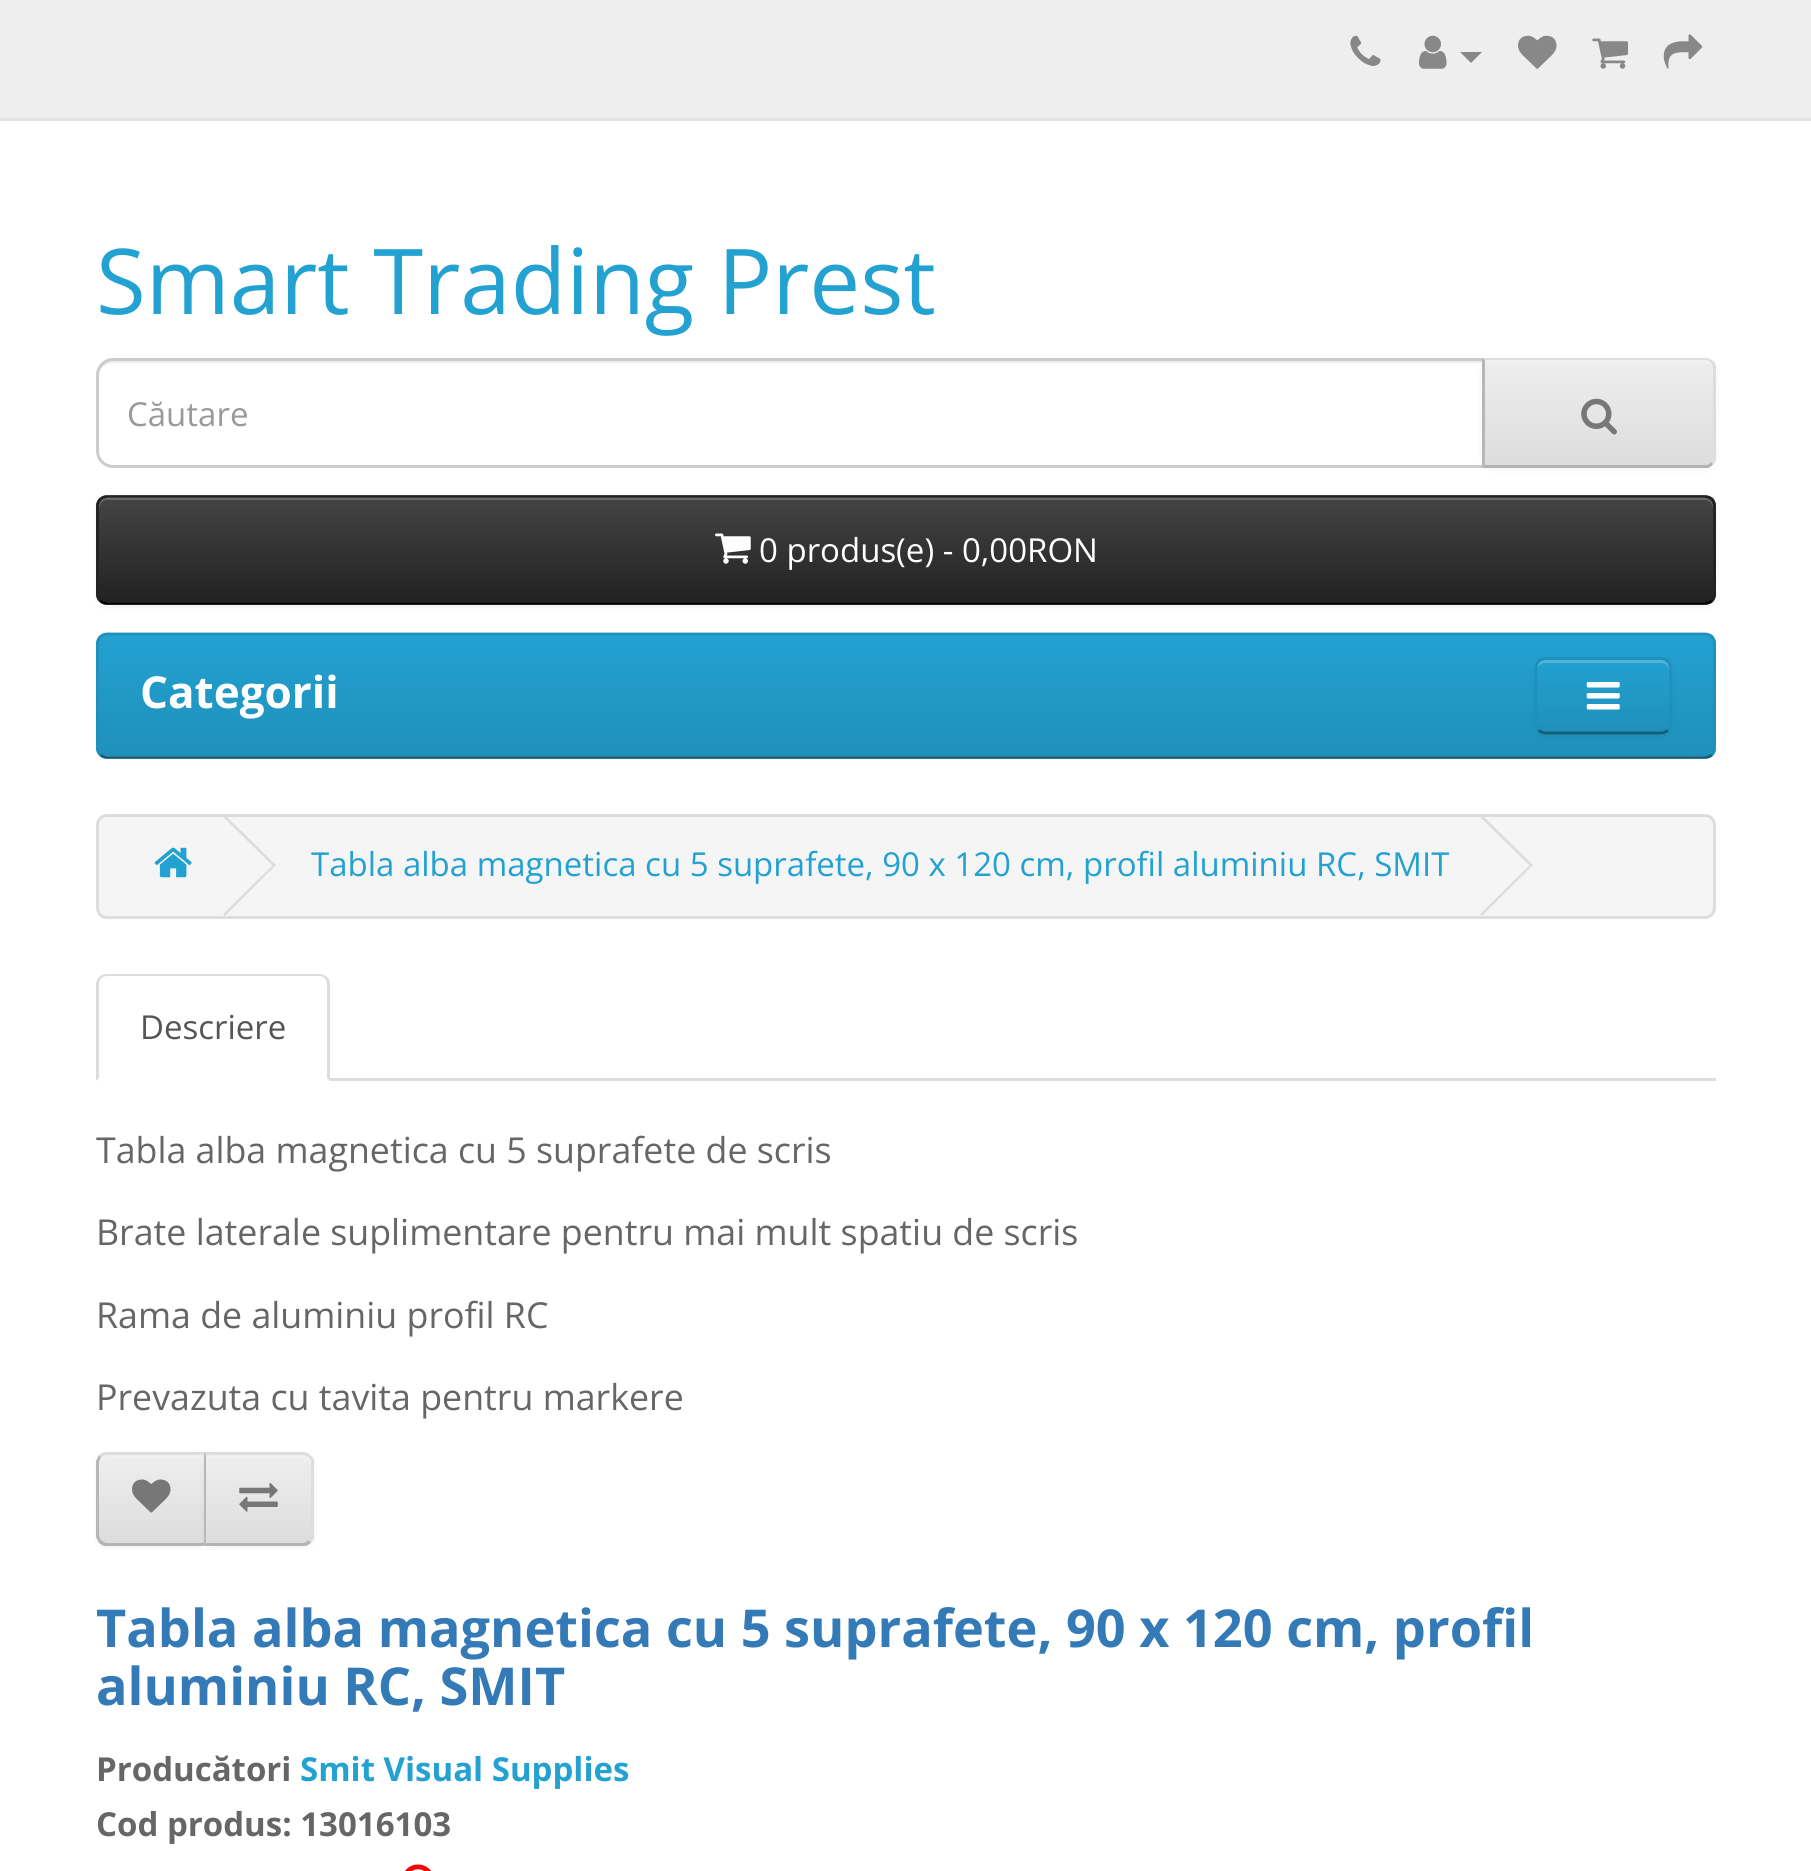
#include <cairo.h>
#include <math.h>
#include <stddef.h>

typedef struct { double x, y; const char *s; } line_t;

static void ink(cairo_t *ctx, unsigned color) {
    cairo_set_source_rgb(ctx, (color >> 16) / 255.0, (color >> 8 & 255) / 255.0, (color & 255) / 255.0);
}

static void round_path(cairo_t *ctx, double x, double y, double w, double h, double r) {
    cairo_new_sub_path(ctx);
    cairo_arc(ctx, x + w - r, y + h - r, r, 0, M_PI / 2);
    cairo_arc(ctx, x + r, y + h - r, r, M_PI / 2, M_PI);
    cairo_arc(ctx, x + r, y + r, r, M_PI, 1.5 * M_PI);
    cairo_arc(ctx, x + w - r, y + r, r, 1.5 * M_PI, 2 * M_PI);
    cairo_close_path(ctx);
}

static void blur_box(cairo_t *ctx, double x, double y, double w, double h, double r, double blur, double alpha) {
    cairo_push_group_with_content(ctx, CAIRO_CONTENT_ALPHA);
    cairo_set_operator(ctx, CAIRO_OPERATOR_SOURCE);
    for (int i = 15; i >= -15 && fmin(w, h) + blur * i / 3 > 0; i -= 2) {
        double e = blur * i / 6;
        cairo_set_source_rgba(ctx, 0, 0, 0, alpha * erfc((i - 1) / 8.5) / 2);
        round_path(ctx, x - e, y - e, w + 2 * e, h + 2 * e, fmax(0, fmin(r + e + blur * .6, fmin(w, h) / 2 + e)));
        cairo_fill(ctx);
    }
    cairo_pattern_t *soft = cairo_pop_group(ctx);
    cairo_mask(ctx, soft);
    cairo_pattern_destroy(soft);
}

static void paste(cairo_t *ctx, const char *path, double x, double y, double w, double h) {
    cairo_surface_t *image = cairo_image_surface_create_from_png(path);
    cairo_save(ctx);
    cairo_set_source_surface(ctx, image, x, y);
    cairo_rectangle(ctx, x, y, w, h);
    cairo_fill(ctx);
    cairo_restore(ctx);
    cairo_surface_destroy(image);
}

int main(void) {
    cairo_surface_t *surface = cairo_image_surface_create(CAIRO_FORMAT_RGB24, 1811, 1871);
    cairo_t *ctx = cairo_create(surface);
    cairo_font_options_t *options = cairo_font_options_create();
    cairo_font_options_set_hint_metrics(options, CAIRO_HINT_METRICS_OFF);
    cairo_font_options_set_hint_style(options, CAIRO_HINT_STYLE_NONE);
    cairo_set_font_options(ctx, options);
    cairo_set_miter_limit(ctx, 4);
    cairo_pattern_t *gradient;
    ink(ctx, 0xFFFFFF);
    cairo_paint(ctx);
    ink(ctx, 0xEEEEEE);
    cairo_rectangle(ctx, 0, 0, 1811, 118);
    cairo_fill(ctx);
    ink(ctx, 0xE2E2E2);
    cairo_rectangle(ctx, 0, 118, 1811, 3);
    cairo_fill(ctx);
    paste(ctx, "media/1.png", 1350, 35, 31, 31);
    paste(ctx, "media/2.png", 1419, 35, 28, 34);
    ink(ctx, 0x888888);
    cairo_new_path(ctx);
    cairo_move_to(ctx, 1460, 52);
    cairo_line_to(ctx, 1482, 52);
    cairo_line_to(ctx, 1471, 63);
    cairo_close_path(ctx);
    cairo_fill(ctx);
    paste(ctx, "media/3.png", 1518, 35, 39, 34);
    paste(ctx, "media/4.png", 1592, 38, 36, 31);
    paste(ctx, "media/5.png", 1663, 34, 40, 35);
    cairo_select_font_face(ctx, "Open Sans", CAIRO_FONT_SLANT_NORMAL, CAIRO_FONT_WEIGHT_NORMAL);
    cairo_set_font_size(ctx, 90.75);
    ink(ctx, 0x23A1D1);
    cairo_move_to(ctx, 96, 314);
    cairo_show_text(ctx, "Smart Trading Prest");
    ink(ctx, 0xECECEC);
    cairo_new_path(ctx);
    cairo_move_to(ctx, 113, 363);
    cairo_line_to(ctx, 1482, 363);
    cairo_line_to(ctx, 1482, 360);
    cairo_line_to(ctx, 113, 360);
    cairo_curve_to(ctx, 105, 360, 99, 366, 99, 374);
    cairo_line_to(ctx, 99, 377);
    cairo_curve_to(ctx, 99, 369, 105, 363, 113, 363);
    cairo_close_path(ctx);
    cairo_fill(ctx);
    cairo_new_path(ctx);
    cairo_move_to(ctx, 113, 359.5);
    cairo_line_to(ctx, 1483.5, 359.5);
    cairo_line_to(ctx, 1483.5, 466.5);
    cairo_line_to(ctx, 113, 466.5);
    cairo_curve_to(ctx, 104.5, 466.5, 97.5, 459.5, 97.5, 451);
    cairo_line_to(ctx, 97.5, 375);
    cairo_curve_to(ctx, 97.5, 366.5, 104.5, 359.5, 113, 359.5);
    cairo_close_path(ctx);
    ink(ctx, 0xCCCCCC);
    cairo_set_line_width(ctx, 3);
    cairo_stroke(ctx);
    cairo_set_font_size(ctx, 33);
    ink(ctx, 0x999999);
    cairo_move_to(ctx, 127, 426);
    cairo_show_text(ctx, "Căutare");
    ink(ctx, 0x000000);
    blur_box(ctx, 1482, 360, 234, 110, 11, 3, 0.05);
    ink(ctx, 0xE7E7E7);
    cairo_new_path(ctx);
    cairo_move_to(ctx, 1482, 358);
    cairo_line_to(ctx, 1705, 358);
    cairo_curve_to(ctx, 1711, 358, 1716, 363, 1716, 369);
    cairo_line_to(ctx, 1716, 457);
    cairo_curve_to(ctx, 1716, 463, 1711, 468, 1705, 468);
    cairo_line_to(ctx, 1482, 468);
    cairo_close_path(ctx);
    cairo_fill(ctx);
    cairo_save(ctx);
    cairo_new_path(ctx);
    cairo_move_to(ctx, 1482, 358);
    cairo_line_to(ctx, 1705, 358);
    cairo_curve_to(ctx, 1711, 358, 1716, 363, 1716, 369);
    cairo_line_to(ctx, 1716, 457);
    cairo_curve_to(ctx, 1716, 463, 1711, 468, 1705, 468);
    cairo_line_to(ctx, 1482, 468);
    cairo_close_path(ctx);
    cairo_clip(ctx);
    gradient = cairo_pattern_create_linear(1599, 360, 1599, 465);
    cairo_pattern_add_color_stop_rgba(gradient, 0, 0.933, 0.933, 0.933, 1);
    cairo_pattern_add_color_stop_rgba(gradient, 1, 0.867, 0.867, 0.867, 1);
    cairo_set_source(ctx, gradient);
    cairo_pattern_destroy(gradient);
    cairo_rectangle(ctx, 1485, 360, 231, 105);
    cairo_fill(ctx);
    cairo_restore(ctx);
    ink(ctx, 0xF1F1F1);
    cairo_new_path(ctx);
    cairo_move_to(ctx, 1485, 363);
    cairo_line_to(ctx, 1705, 363);
    cairo_curve_to(ctx, 1710, 363, 1713, 367, 1713, 371);
    cairo_line_to(ctx, 1713, 368);
    cairo_curve_to(ctx, 1713, 364, 1709, 360, 1705, 360);
    cairo_line_to(ctx, 1485, 360);
    cairo_close_path(ctx);
    cairo_fill(ctx);
    ink(ctx, 0xDDDDDD);
    cairo_new_path(ctx);
    cairo_move_to(ctx, 1485, 360);
    cairo_line_to(ctx, 1705, 360);
    cairo_curve_to(ctx, 1708, 360, 1710, 361, 1711, 363);
    cairo_line_to(ctx, 1713, 361);
    cairo_curve_to(ctx, 1711, 359, 1708, 358, 1705, 358);
    cairo_line_to(ctx, 1483, 358);
    cairo_close_path(ctx);
    cairo_fill(ctx);
    cairo_new_path(ctx);
    cairo_move_to(ctx, 1713, 361);
    cairo_curve_to(ctx, 1715, 362, 1716, 365, 1716, 368);
    cairo_line_to(ctx, 1716, 456);
    cairo_curve_to(ctx, 1716, 459, 1715, 462, 1713, 464);
    cairo_line_to(ctx, 1711, 462);
    cairo_curve_to(ctx, 1712, 461, 1713, 458, 1713, 456);
    cairo_line_to(ctx, 1713, 368);
    cairo_curve_to(ctx, 1713, 366, 1712, 364, 1711, 363);
    cairo_close_path(ctx);
    cairo_fill(ctx);
    ink(ctx, 0xB3B3B3);
    cairo_new_path(ctx);
    cairo_move_to(ctx, 1713, 464);
    cairo_curve_to(ctx, 1712, 466, 1710, 467, 1708, 468);
    cairo_line_to(ctx, 1482, 468);
    cairo_line_to(ctx, 1485, 465);
    cairo_line_to(ctx, 1705, 465);
    cairo_curve_to(ctx, 1708, 465, 1710, 464, 1711, 462);
    cairo_close_path(ctx);
    cairo_fill(ctx);
    ink(ctx, 0xB7B7B7);
    cairo_new_path(ctx);
    cairo_move_to(ctx, 1482, 468);
    cairo_line_to(ctx, 1485, 465);
    cairo_line_to(ctx, 1485, 360);
    cairo_line_to(ctx, 1482, 358);
    cairo_close_path(ctx);
    cairo_fill(ctx);
    paste(ctx, "media/6.png", 1581, 398, 36, 37);
    ink(ctx, 0x000000);
    blur_box(ctx, 96, 498, 1620, 110, 11, 3, 0.05);
    cairo_save(ctx);
    round_path(ctx, 96, 495, 1620, 110, 11);
    cairo_clip(ctx);
    gradient = cairo_pattern_create_linear(906, 498, 906, 602);
    cairo_pattern_add_color_stop_rgba(gradient, 0, 0.267, 0.267, 0.267, 1);
    cairo_pattern_add_color_stop_rgba(gradient, 1, 0.133, 0.133, 0.133, 1);
    cairo_set_source(ctx, gradient);
    cairo_pattern_destroy(gradient);
    cairo_rectangle(ctx, 96, 498, 1620, 104);
    cairo_fill(ctx);
    cairo_restore(ctx);
    ink(ctx, 0x696969);
    cairo_new_path(ctx);
    cairo_move_to(ctx, 107, 500);
    cairo_line_to(ctx, 1705, 500);
    cairo_curve_to(ctx, 1710, 500, 1713, 504, 1713, 509);
    cairo_line_to(ctx, 1713, 506);
    cairo_curve_to(ctx, 1713, 502, 1709, 498, 1705, 498);
    cairo_line_to(ctx, 107, 498);
    cairo_curve_to(ctx, 103, 498, 99, 502, 99, 506);
    cairo_line_to(ctx, 99, 509);
    cairo_curve_to(ctx, 99, 504, 103, 500, 107, 500);
    cairo_close_path(ctx);
    cairo_fill(ctx);
    cairo_new_path(ctx);
    cairo_move_to(ctx, 1712, 601);
    cairo_curve_to(ctx, 1710, 602.5, 1707.5, 603.5, 1705, 603.5);
    cairo_line_to(ctx, 107, 603.5);
    cairo_curve_to(ctx, 104.5, 603.5, 102, 602.5, 100.5, 601);
    ink(ctx, 0x000000);
    cairo_set_line_width(ctx, 2.8);
    cairo_stroke(ctx);
    cairo_new_path(ctx);
    cairo_move_to(ctx, 100.5, 601);
    cairo_curve_to(ctx, 98.5, 599, 97.5, 596.5, 97.5, 594);
    cairo_line_to(ctx, 97.5, 506);
    cairo_curve_to(ctx, 97.5, 503.5, 98.5, 501, 100.5, 499);
    cairo_curve_to(ctx, 102, 497.5, 104.5, 496.5, 107, 496.5);
    cairo_line_to(ctx, 1705, 496.5);
    cairo_curve_to(ctx, 1707.5, 496.5, 1710, 497.5, 1712, 499);
    cairo_curve_to(ctx, 1713.5, 501, 1714.5, 503.5, 1714.5, 506);
    cairo_line_to(ctx, 1714.5, 594);
    cairo_curve_to(ctx, 1714.5, 596.5, 1713.5, 599, 1712, 601);
    ink(ctx, 0x222222);
    cairo_stroke(ctx);
    paste(ctx, "media/7.png", 715, 533, 36, 31);
    ink(ctx, 0xFFFFFF);
    cairo_move_to(ctx, 759, 562);
    cairo_show_text(ctx, "0 produs(e) - 0,00RON");
    cairo_save(ctx);
    round_path(ctx, 96, 633, 1620, 126, 11);
    cairo_clip(ctx);
    gradient = cairo_pattern_create_linear(906, 635, 906, 756);
    cairo_pattern_add_color_stop_rgba(gradient, 0, 0.137, 0.631, 0.82, 1);
    cairo_pattern_add_color_stop_rgba(gradient, 1, 0.122, 0.565, 0.733, 1);
    cairo_set_source(ctx, gradient);
    cairo_pattern_destroy(gradient);
    cairo_rectangle(ctx, 96, 635, 1620, 121);
    cairo_fill(ctx);
    cairo_restore(ctx);
    cairo_new_path(ctx);
    cairo_move_to(ctx, 1712, 755);
    cairo_curve_to(ctx, 1710, 756.5, 1707.5, 757.5, 1705, 757.5);
    cairo_line_to(ctx, 107, 757.5);
    cairo_curve_to(ctx, 104.5, 757.5, 102, 756.5, 100.5, 755);
    ink(ctx, 0x145E7A);
    cairo_stroke(ctx);
    cairo_new_path(ctx);
    cairo_move_to(ctx, 100.5, 755);
    cairo_curve_to(ctx, 98.5, 753, 97.5, 750.5, 97.5, 748);
    cairo_line_to(ctx, 97.5, 643.5);
    cairo_curve_to(ctx, 97.5, 641, 98.5, 638.5, 100.5, 636.5);
    cairo_curve_to(ctx, 102, 635, 104.5, 634, 107, 634);
    cairo_line_to(ctx, 1705, 634);
    cairo_curve_to(ctx, 1707.5, 634, 1710, 635, 1712, 636.5);
    cairo_curve_to(ctx, 1713.5, 638.5, 1714.5, 641, 1714.5, 643.5);
    cairo_line_to(ctx, 1714.5, 748);
    cairo_curve_to(ctx, 1714.5, 750.5, 1713.5, 753, 1712, 755);
    ink(ctx, 0x1F90BB);
    cairo_stroke(ctx);
    cairo_select_font_face(ctx, "Open Sans", CAIRO_FONT_SLANT_NORMAL, CAIRO_FONT_WEIGHT_BOLD);
    cairo_set_font_size(ctx, 44);
    ink(ctx, 0xFFFFFF);
    cairo_move_to(ctx, 140, 708);
    cairo_show_text(ctx, "Categorii");
    ink(ctx, 0x000000);
    blur_box(ctx, 1535, 660, 137, 77, 11, 3, 0.05);
    ink(ctx, 0x229AC8);
    round_path(ctx, 1535, 657, 137, 77, 11);
    cairo_fill(ctx);
    cairo_save(ctx);
    round_path(ctx, 1535, 657, 137, 77, 11);
    cairo_clip(ctx);
    gradient = cairo_pattern_create_linear(1603, 660, 1603, 732);
    cairo_pattern_add_color_stop_rgba(gradient, 0, 0.137, 0.631, 0.82, 1);
    cairo_pattern_add_color_stop_rgba(gradient, 1, 0.122, 0.565, 0.733, 1);
    cairo_set_source(ctx, gradient);
    cairo_pattern_destroy(gradient);
    cairo_rectangle(ctx, 1535, 660, 137, 72);
    cairo_fill(ctx);
    cairo_restore(ctx);
    ink(ctx, 0x4FB3DA);
    cairo_new_path(ctx);
    cairo_move_to(ctx, 1546, 663);
    cairo_line_to(ctx, 1661, 663);
    cairo_curve_to(ctx, 1666, 663, 1669, 666, 1669, 671);
    cairo_line_to(ctx, 1669, 668);
    cairo_curve_to(ctx, 1669, 664, 1665, 660, 1661, 660);
    cairo_line_to(ctx, 1545, 660);
    cairo_curve_to(ctx, 1541, 660, 1537, 664, 1537, 668);
    cairo_line_to(ctx, 1537, 671);
    cairo_curve_to(ctx, 1537, 666, 1541, 663, 1546, 663);
    cairo_close_path(ctx);
    cairo_fill(ctx);
    cairo_new_path(ctx);
    cairo_move_to(ctx, 1668, 730);
    cairo_curve_to(ctx, 1666, 732, 1663.5, 733, 1661, 733);
    cairo_line_to(ctx, 1545.5, 733);
    cairo_curve_to(ctx, 1543, 733, 1540.5, 732, 1538.5, 730);
    ink(ctx, 0x145E7A);
    cairo_stroke(ctx);
    cairo_new_path(ctx);
    cairo_move_to(ctx, 1538.5, 730);
    cairo_curve_to(ctx, 1537, 728.5, 1536, 726, 1536, 723);
    cairo_line_to(ctx, 1536, 668);
    cairo_curve_to(ctx, 1536, 665.5, 1537, 663, 1538.5, 661.5);
    cairo_curve_to(ctx, 1540.5, 659.5, 1543, 658.5, 1545.5, 658.5);
    cairo_line_to(ctx, 1661, 658.5);
    cairo_curve_to(ctx, 1663.5, 658.5, 1666, 659.5, 1668, 661.5);
    cairo_curve_to(ctx, 1669.5, 663, 1670.5, 665.5, 1670.5, 668);
    cairo_line_to(ctx, 1670.5, 723);
    cairo_curve_to(ctx, 1670.5, 726, 1669.5, 728.5, 1668, 730);
    ink(ctx, 0x1F90BB);
    cairo_stroke(ctx);
    paste(ctx, "media/8.png", 1586, 682, 34, 28);
    ink(ctx, 0xF5F5F5);
    round_path(ctx, 97.5, 815.5, 1617, 102, 9.5);
    cairo_fill_preserve(ctx);
    ink(ctx, 0xDDDDDD);
    cairo_set_line_width(ctx, 3);
    cairo_stroke(ctx);
    paste(ctx, "media/9.png", 154, 847, 38, 31);
    cairo_new_path(ctx);
    cairo_move_to(ctx, 223, 817);
    cairo_line_to(ctx, 225, 815);
    cairo_line_to(ctx, 276, 865);
    cairo_line_to(ctx, 274, 867);
    cairo_close_path(ctx);
    cairo_fill(ctx);
    cairo_new_path(ctx);
    cairo_move_to(ctx, 223, 914);
    cairo_line_to(ctx, 274, 864);
    cairo_line_to(ctx, 276, 865);
    cairo_line_to(ctx, 225, 916);
    cairo_close_path(ctx);
    cairo_fill(ctx);
    cairo_select_font_face(ctx, "Open Sans", CAIRO_FONT_SLANT_NORMAL, CAIRO_FONT_WEIGHT_NORMAL);
    cairo_set_font_size(ctx, 33);
    ink(ctx, 0x23A1D1);
    cairo_move_to(ctx, 311, 876);
    cairo_show_text(ctx, "Tabla alba magnetica cu 5 suprafete, 90 x 120 cm, profil aluminiu RC, SMIT");
    ink(ctx, 0xDDDDDD);
    cairo_new_path(ctx);
    cairo_move_to(ctx, 1480, 817);
    cairo_line_to(ctx, 1482, 815);
    cairo_line_to(ctx, 1533, 865);
    cairo_line_to(ctx, 1531, 867);
    cairo_close_path(ctx);
    cairo_fill(ctx);
    cairo_new_path(ctx);
    cairo_move_to(ctx, 1480, 914);
    cairo_line_to(ctx, 1531, 864);
    cairo_line_to(ctx, 1533, 865);
    cairo_line_to(ctx, 1482, 916);
    cairo_close_path(ctx);
    cairo_fill(ctx);
    cairo_rectangle(ctx, 330, 1078, 1386, 3);
    cairo_fill(ctx);
    cairo_new_path(ctx);
    cairo_move_to(ctx, 107, 974);
    cairo_curve_to(ctx, 104, 974, 101, 975, 99, 977);
    cairo_line_to(ctx, 101, 979);
    cairo_curve_to(ctx, 103, 977, 105, 976, 107, 976);
    cairo_line_to(ctx, 319, 976);
    cairo_curve_to(ctx, 322, 976, 324, 977, 325, 979);
    cairo_line_to(ctx, 327, 977);
    cairo_curve_to(ctx, 325, 975, 322, 974, 319, 974);
    cairo_close_path(ctx);
    cairo_fill(ctx);
    cairo_new_path(ctx);
    cairo_move_to(ctx, 327, 977);
    cairo_curve_to(ctx, 329, 978, 330, 981, 330, 984);
    cairo_line_to(ctx, 330, 1081);
    cairo_line_to(ctx, 327, 1078);
    cairo_line_to(ctx, 327, 984);
    cairo_curve_to(ctx, 327, 982, 326, 980, 325, 979);
    cairo_close_path(ctx);
    cairo_fill(ctx);
    cairo_new_path(ctx);
    cairo_move_to(ctx, 96, 1081);
    cairo_line_to(ctx, 99, 1078);
    cairo_line_to(ctx, 99, 984);
    cairo_curve_to(ctx, 99, 982, 100, 980, 101, 979);
    cairo_line_to(ctx, 99, 977);
    cairo_curve_to(ctx, 98, 978, 97, 980, 96, 982);
    cairo_close_path(ctx);
    cairo_fill(ctx);
    ink(ctx, 0x555555);
    cairo_move_to(ctx, 140, 1039);
    cairo_show_text(ctx, "Descriere");
    cairo_set_font_size(ctx, 35.75);
    ink(ctx, 0x666666);
    {
        static const line_t items[] = {
            {96, 1163, "Tabla alba magnetica cu 5 suprafete de scris"},
            {96, 1245, "Brate laterale suplimentare pentru mai mult spatiu de scris"},
            {96, 1328, "Rama de aluminiu profil RC"},
            {96, 1410, "Prevazuta cu tavita pentru markere"},
        };
        for (size_t i = 0; i < sizeof items / sizeof *items; i++) {
            cairo_move_to(ctx, items[i].x, items[i].y);
            cairo_show_text(ctx, items[i].s);
        }
    }
    ink(ctx, 0x000000);
    blur_box(ctx, 96, 1455, 110, 93, 11, 3, 0.05);
    cairo_save(ctx);
    cairo_new_path(ctx);
    cairo_move_to(ctx, 107, 1452);
    cairo_line_to(ctx, 206, 1452);
    cairo_line_to(ctx, 206, 1546);
    cairo_line_to(ctx, 107, 1546);
    cairo_curve_to(ctx, 101, 1546, 96, 1541, 96, 1535);
    cairo_line_to(ctx, 96, 1463);
    cairo_curve_to(ctx, 96, 1457, 101, 1452, 107, 1452);
    cairo_close_path(ctx);
    cairo_clip(ctx);
    gradient = cairo_pattern_create_linear(151, 1455, 151, 1543);
    cairo_pattern_add_color_stop_rgba(gradient, 0, 0.933, 0.933, 0.933, 1);
    cairo_pattern_add_color_stop_rgba(gradient, 1, 0.867, 0.867, 0.867, 1);
    cairo_set_source(ctx, gradient);
    cairo_pattern_destroy(gradient);
    cairo_rectangle(ctx, 96, 1455, 108, 88);
    cairo_fill(ctx);
    cairo_restore(ctx);
    ink(ctx, 0xF1F1F1);
    cairo_new_path(ctx);
    cairo_move_to(ctx, 107, 1458);
    cairo_line_to(ctx, 204, 1458);
    cairo_line_to(ctx, 204, 1455);
    cairo_line_to(ctx, 107, 1455);
    cairo_curve_to(ctx, 103, 1455, 99, 1459, 99, 1463);
    cairo_line_to(ctx, 99, 1466);
    cairo_curve_to(ctx, 99, 1461, 103, 1458, 107, 1458);
    cairo_close_path(ctx);
    cairo_fill(ctx);
    ink(ctx, 0xDDDDDD);
    cairo_new_path(ctx);
    cairo_move_to(ctx, 107, 1452);
    cairo_curve_to(ctx, 104, 1452, 101, 1453, 99, 1455);
    cairo_line_to(ctx, 101, 1457);
    cairo_curve_to(ctx, 103, 1456, 105, 1455, 107, 1455);
    cairo_line_to(ctx, 203, 1455);
    cairo_line_to(ctx, 206, 1452);
    cairo_close_path(ctx);
    cairo_fill(ctx);
    cairo_new_path(ctx);
    cairo_move_to(ctx, 206, 1452);
    cairo_line_to(ctx, 206, 1545);
    cairo_line_to(ctx, 204, 1543);
    cairo_line_to(ctx, 204, 1455);
    cairo_line_to(ctx, 203, 1455);
    cairo_close_path(ctx);
    cairo_fill(ctx);
    ink(ctx, 0xB3B3B3);
    cairo_new_path(ctx);
    cairo_move_to(ctx, 104, 1546);
    cairo_curve_to(ctx, 102, 1545, 100, 1544, 99, 1543);
    cairo_line_to(ctx, 101, 1540);
    cairo_curve_to(ctx, 103, 1542, 105, 1543, 107, 1543);
    cairo_line_to(ctx, 204, 1543);
    cairo_line_to(ctx, 206, 1546);
    cairo_close_path(ctx);
    cairo_fill(ctx);
    ink(ctx, 0xB7B7B7);
    cairo_new_path(ctx);
    cairo_move_to(ctx, 96, 1461);
    cairo_curve_to(ctx, 97, 1459, 98, 1457, 99, 1455);
    cairo_line_to(ctx, 101, 1457);
    cairo_curve_to(ctx, 100, 1459, 99, 1461, 99, 1463);
    cairo_line_to(ctx, 99, 1534);
    cairo_curve_to(ctx, 99, 1536, 100, 1539, 101, 1540);
    cairo_line_to(ctx, 99, 1543);
    cairo_curve_to(ctx, 98, 1541, 97, 1539, 96, 1537);
    cairo_close_path(ctx);
    cairo_fill(ctx);
    paste(ctx, "media/10.png", 132, 1479, 39, 34);
    ink(ctx, 0x000000);
    blur_box(ctx, 204, 1455, 110, 93, 11, 3, 0.05);
    ink(ctx, 0xE7E7E7);
    cairo_new_path(ctx);
    cairo_move_to(ctx, 204, 1452);
    cairo_line_to(ctx, 303, 1452);
    cairo_curve_to(ctx, 309, 1452, 314, 1457, 314, 1463);
    cairo_line_to(ctx, 314, 1535);
    cairo_curve_to(ctx, 314, 1541, 309, 1546, 303, 1546);
    cairo_line_to(ctx, 204, 1546);
    cairo_close_path(ctx);
    cairo_fill(ctx);
    cairo_save(ctx);
    cairo_new_path(ctx);
    cairo_move_to(ctx, 204, 1452);
    cairo_line_to(ctx, 303, 1452);
    cairo_curve_to(ctx, 309, 1452, 314, 1457, 314, 1463);
    cairo_line_to(ctx, 314, 1535);
    cairo_curve_to(ctx, 314, 1541, 309, 1546, 303, 1546);
    cairo_line_to(ctx, 204, 1546);
    cairo_close_path(ctx);
    cairo_clip(ctx);
    gradient = cairo_pattern_create_linear(259, 1455, 259, 1543);
    cairo_pattern_add_color_stop_rgba(gradient, 0, 0.933, 0.933, 0.933, 1);
    cairo_pattern_add_color_stop_rgba(gradient, 1, 0.867, 0.867, 0.867, 1);
    cairo_set_source(ctx, gradient);
    cairo_pattern_destroy(gradient);
    cairo_rectangle(ctx, 206, 1455, 108, 88);
    cairo_fill(ctx);
    cairo_restore(ctx);
    ink(ctx, 0xF1F1F1);
    cairo_new_path(ctx);
    cairo_move_to(ctx, 206, 1458);
    cairo_line_to(ctx, 302, 1458);
    cairo_curve_to(ctx, 307, 1458, 311, 1461, 311, 1466);
    cairo_line_to(ctx, 311, 1463);
    cairo_curve_to(ctx, 311, 1459, 307, 1455, 303, 1455);
    cairo_line_to(ctx, 206, 1455);
    cairo_close_path(ctx);
    cairo_fill(ctx);
    ink(ctx, 0xDDDDDD);
    cairo_new_path(ctx);
    cairo_move_to(ctx, 204, 1452);
    cairo_line_to(ctx, 206, 1455);
    cairo_line_to(ctx, 302, 1455);
    cairo_curve_to(ctx, 304, 1455, 307, 1456, 308, 1457);
    cairo_line_to(ctx, 310, 1455);
    cairo_curve_to(ctx, 308, 1453, 305, 1452, 302, 1452);
    cairo_close_path(ctx);
    cairo_fill(ctx);
    cairo_new_path(ctx);
    cairo_move_to(ctx, 314, 1538);
    cairo_curve_to(ctx, 313, 1540, 312, 1541, 311, 1543);
    cairo_line_to(ctx, 308, 1540);
    cairo_curve_to(ctx, 310, 1539, 311, 1536, 311, 1534);
    cairo_line_to(ctx, 311, 1463);
    cairo_curve_to(ctx, 311, 1460, 310, 1458, 308, 1457);
    cairo_line_to(ctx, 310, 1455);
    cairo_curve_to(ctx, 312, 1456, 313, 1458, 314, 1460);
    cairo_close_path(ctx);
    cairo_fill(ctx);
    ink(ctx, 0xB3B3B3);
    cairo_new_path(ctx);
    cairo_move_to(ctx, 204, 1546);
    cairo_line_to(ctx, 206, 1543);
    cairo_line_to(ctx, 302, 1543);
    cairo_curve_to(ctx, 304, 1543, 307, 1542, 308, 1540);
    cairo_line_to(ctx, 311, 1543);
    cairo_curve_to(ctx, 309, 1544, 308, 1545, 306, 1546);
    cairo_close_path(ctx);
    cairo_fill(ctx);
    ink(ctx, 0xB7B7B7);
    cairo_new_path(ctx);
    cairo_move_to(ctx, 206, 1455);
    cairo_line_to(ctx, 204, 1452);
    cairo_line_to(ctx, 204, 1545);
    cairo_line_to(ctx, 206, 1543);
    cairo_close_path(ctx);
    cairo_fill(ctx);
    paste(ctx, "media/11.png", 239, 1483, 39, 29);
    cairo_select_font_face(ctx, "Open Sans", CAIRO_FONT_SLANT_NORMAL, CAIRO_FONT_WEIGHT_BOLD);
    cairo_set_font_size(ctx, 52.25);
    ink(ctx, 0x337AB7);
    cairo_move_to(ctx, 96, 1647);
    cairo_show_text(ctx, "Tabla alba magnetica cu 5 suprafete, 90 x 120 cm, profil");
    cairo_move_to(ctx, 96, 1705);
    cairo_show_text(ctx, "aluminiu RC, SMIT");
    cairo_set_font_size(ctx, 33);
    ink(ctx, 0x666666);
    cairo_move_to(ctx, 96, 1781);
    cairo_show_text(ctx, "Producători");
    ink(ctx, 0x23A1D1);
    cairo_move_to(ctx, 300, 1781);
    cairo_show_text(ctx, "Smit Visual Supplies");
    ink(ctx, 0x666666);
    cairo_move_to(ctx, 96, 1836);
    cairo_show_text(ctx, "Cod produs: 13016103");
    paste(ctx, "media/12.png", 405, 1864, 26, 7);
    cairo_surface_write_to_png(surface, "image.png");
    cairo_font_options_destroy(options);
    cairo_destroy(ctx);
    cairo_surface_destroy(surface);
    return 0;
}
